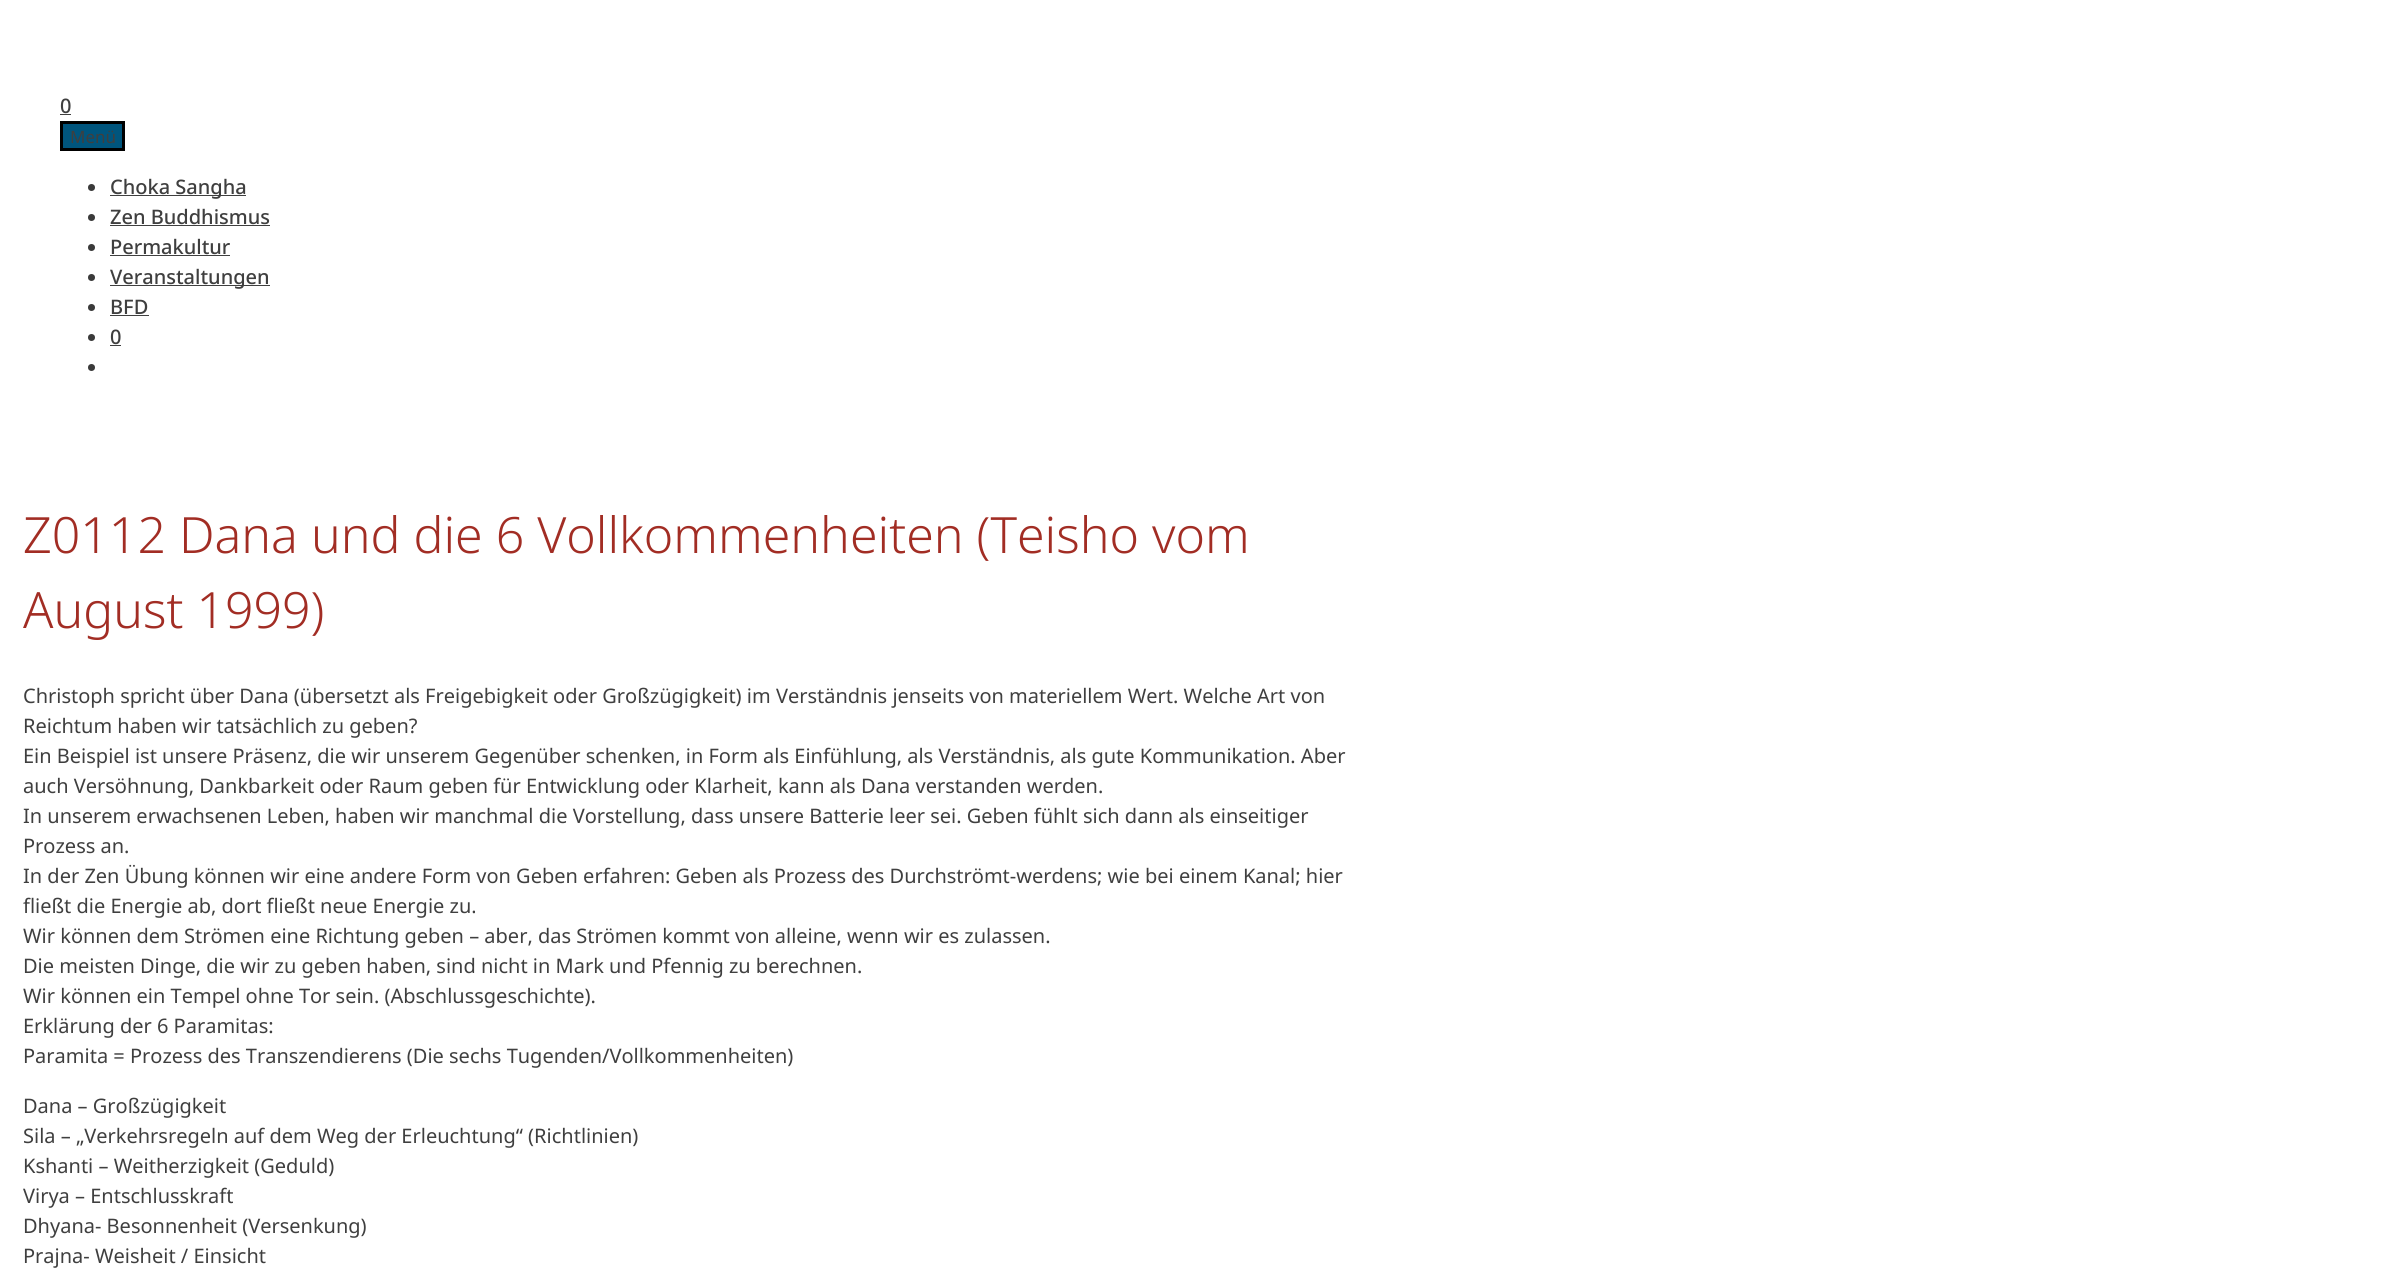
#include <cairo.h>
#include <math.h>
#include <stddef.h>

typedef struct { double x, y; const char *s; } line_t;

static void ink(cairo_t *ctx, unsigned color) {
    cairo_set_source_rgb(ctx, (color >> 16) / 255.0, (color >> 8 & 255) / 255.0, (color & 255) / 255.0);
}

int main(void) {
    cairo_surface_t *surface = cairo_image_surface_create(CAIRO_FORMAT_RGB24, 2395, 1283);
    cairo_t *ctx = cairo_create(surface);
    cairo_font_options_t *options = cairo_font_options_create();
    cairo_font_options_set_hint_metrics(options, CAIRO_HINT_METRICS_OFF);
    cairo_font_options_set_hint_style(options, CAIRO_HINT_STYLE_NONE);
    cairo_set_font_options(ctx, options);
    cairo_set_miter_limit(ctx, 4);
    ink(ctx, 0xFFFFFF);
    cairo_paint(ctx);
    cairo_select_font_face(ctx, "Noto Sans Medium", CAIRO_FONT_SLANT_NORMAL, CAIRO_FONT_WEIGHT_NORMAL);
    cairo_set_font_size(ctx, 20);
    ink(ctx, 0x3F3F3F);
    cairo_move_to(ctx, 60, 113);
    cairo_show_text(ctx, "0");
    cairo_rectangle(ctx, 60, 114, 11, 1);
    cairo_fill(ctx);
    ink(ctx, 0x00557D);
    cairo_rectangle(ctx, 61.5, 122.5, 62, 27);
    cairo_fill_preserve(ctx);
    ink(ctx, 0x000000);
    cairo_set_line_width(ctx, 3);
    cairo_stroke(ctx);
    cairo_select_font_face(ctx, "Noto Sans", CAIRO_FONT_SLANT_NORMAL, CAIRO_FONT_WEIGHT_NORMAL);
    cairo_set_font_size(ctx, 17);
    ink(ctx, 0x3F3F3F);
    cairo_move_to(ctx, 70, 143);
    cairo_show_text(ctx, "Menü");
    ink(ctx, 0x3A3A3A);
    cairo_new_path(ctx);
    cairo_arc(ctx, 91.5, 187.5, 3.5, 0, 2 * M_PI);
    cairo_fill(ctx);
    ink(ctx, 0x3F3F3F);
    cairo_rectangle(ctx, 110, 195, 136, 1);
    cairo_fill(ctx);
    cairo_select_font_face(ctx, "Noto Sans Medium", CAIRO_FONT_SLANT_NORMAL, CAIRO_FONT_WEIGHT_NORMAL);
    cairo_set_font_size(ctx, 20);
    cairo_move_to(ctx, 110, 194);
    cairo_show_text(ctx, "Choka Sangha");
    ink(ctx, 0x3A3A3A);
    cairo_new_path(ctx);
    cairo_arc(ctx, 91.5, 217.5, 3.5, 0, 2 * M_PI);
    cairo_fill(ctx);
    ink(ctx, 0x3F3F3F);
    cairo_move_to(ctx, 110, 224);
    cairo_show_text(ctx, "Zen Buddhismus");
    cairo_rectangle(ctx, 110, 225, 160, 1);
    cairo_fill(ctx);
    ink(ctx, 0x3A3A3A);
    cairo_arc(ctx, 91.5, 247.5, 3.5, 0, 2 * M_PI);
    cairo_fill(ctx);
    ink(ctx, 0x3F3F3F);
    cairo_move_to(ctx, 110, 254);
    cairo_show_text(ctx, "Permakultur");
    cairo_rectangle(ctx, 110, 255, 120, 1);
    cairo_fill(ctx);
    ink(ctx, 0x3A3A3A);
    cairo_arc(ctx, 91.5, 277.5, 3.5, 0, 2 * M_PI);
    cairo_fill(ctx);
    ink(ctx, 0x3F3F3F);
    cairo_rectangle(ctx, 110, 285, 160, 1);
    cairo_fill(ctx);
    cairo_move_to(ctx, 110, 284);
    cairo_show_text(ctx, "Veranstaltungen");
    ink(ctx, 0x3A3A3A);
    cairo_new_path(ctx);
    cairo_arc(ctx, 91.5, 307.5, 3.5, 0, 2 * M_PI);
    cairo_fill(ctx);
    ink(ctx, 0x3F3F3F);
    cairo_move_to(ctx, 110, 314);
    cairo_show_text(ctx, "BFD");
    cairo_rectangle(ctx, 110, 315, 39, 1);
    cairo_fill(ctx);
    ink(ctx, 0x3A3A3A);
    cairo_arc(ctx, 91.5, 337.5, 3.5, 0, 2 * M_PI);
    cairo_fill(ctx);
    ink(ctx, 0x3F3F3F);
    cairo_move_to(ctx, 110, 344);
    cairo_show_text(ctx, "0");
    cairo_rectangle(ctx, 110, 345, 11, 1);
    cairo_fill(ctx);
    ink(ctx, 0x3A3A3A);
    cairo_arc(ctx, 91.5, 367.5, 3.5, 0, 2 * M_PI);
    cairo_fill(ctx);
    cairo_select_font_face(ctx, "Noto Sans Light", CAIRO_FONT_SLANT_NORMAL, CAIRO_FONT_WEIGHT_NORMAL);
    cairo_set_font_size(ctx, 50);
    ink(ctx, 0xA22D24);
    cairo_move_to(ctx, 23, 553);
    cairo_show_text(ctx, "Z0112 Dana und die 6 Vollkommenheiten (Teisho vom");
    cairo_move_to(ctx, 23, 628);
    cairo_show_text(ctx, "August 1999)");
    cairo_select_font_face(ctx, "Noto Sans", CAIRO_FONT_SLANT_NORMAL, CAIRO_FONT_WEIGHT_NORMAL);
    cairo_set_font_size(ctx, 20);
    ink(ctx, 0x3F3F3F);
    {
        static const line_t items[] = {
            {23, 703, "Christoph spricht über Dana (übersetzt als Freigebigkeit oder Großzügigkeit) im Verständnis jenseits von materiellem Wert. Welche Art von"},
            {23, 733, "Reichtum haben wir tatsächlich zu geben?"},
            {23, 763, "Ein Beispiel ist unsere Präsenz, die wir unserem Gegenüber schenken, in Form als Einfühlung, als Verständnis, als gute Kommunikation. Aber"},
            {23, 793, "auch Versöhnung, Dankbarkeit oder Raum geben für Entwicklung oder Klarheit, kann als Dana verstanden werden."},
            {23, 823, "In unserem erwachsenen Leben, haben wir manchmal die Vorstellung, dass unsere Batterie leer sei. Geben fühlt sich dann als einseitiger"},
            {23, 853, "Prozess an."},
            {23, 883, "In der Zen Übung können wir eine andere Form von Geben erfahren: Geben als Prozess des Durchströmt-werdens; wie bei einem Kanal; hier"},
            {23, 913, "fließt die Energie ab, dort fließt neue Energie zu."},
            {23, 943, "Wir können dem Strömen eine Richtung geben – aber, das Strömen kommt von alleine, wenn wir es zulassen."},
            {23, 973, "Die meisten Dinge, die wir zu geben haben, sind nicht in Mark und Pfennig zu berechnen."},
            {23, 1003, "Wir können ein Tempel ohne Tor sein. (Abschlussgeschichte)."},
            {23, 1033, "Erklärung der 6 Paramitas:"},
            {23, 1063, "Paramita = Prozess des Transzendierens (Die sechs Tugenden/Vollkommenheiten)"},
            {23, 1113, "Dana – Großzügigkeit"},
            {23, 1143, "Sila – „Verkehrsregeln auf dem Weg der Erleuchtung“ (Richtlinien)"},
            {23, 1173, "Kshanti – Weitherzigkeit (Geduld)"},
            {23, 1203, "Virya – Entschlusskraft"},
            {23, 1233, "Dhyana- Besonnenheit (Versenkung)"},
            {23, 1263, "Prajna- Weisheit / Einsicht"},
        };
        for (size_t i = 0; i < sizeof items / sizeof *items; i++) {
            cairo_move_to(ctx, items[i].x, items[i].y);
            cairo_show_text(ctx, items[i].s);
        }
    }
    cairo_surface_write_to_png(surface, "image.png");
    cairo_font_options_destroy(options);
    cairo_destroy(ctx);
    cairo_surface_destroy(surface);
    return 0;
}
